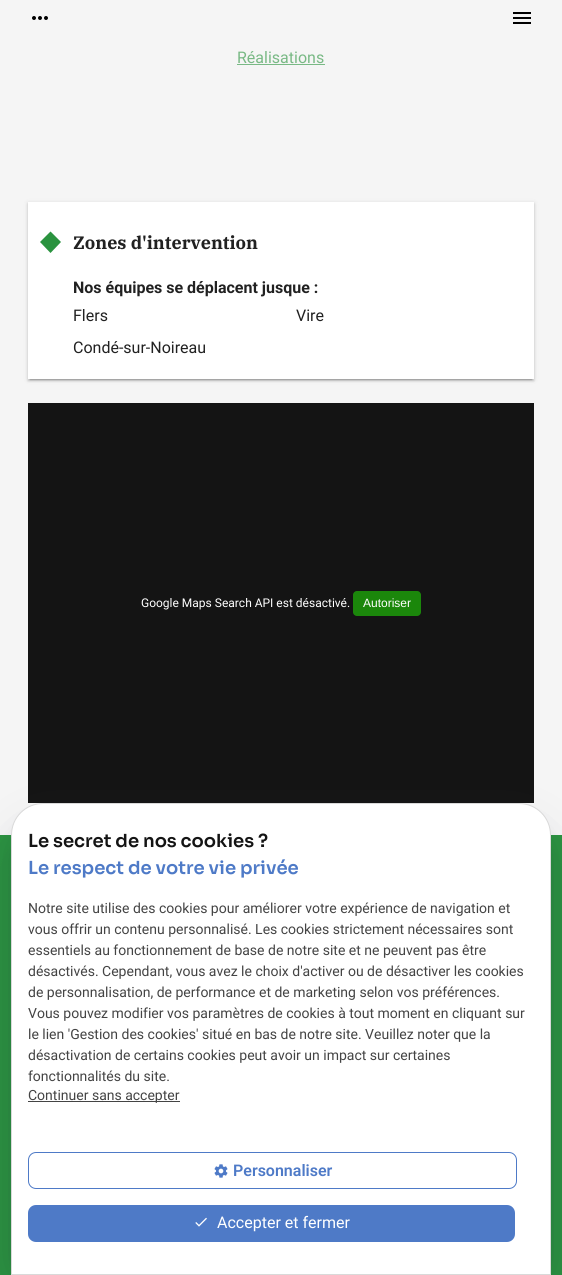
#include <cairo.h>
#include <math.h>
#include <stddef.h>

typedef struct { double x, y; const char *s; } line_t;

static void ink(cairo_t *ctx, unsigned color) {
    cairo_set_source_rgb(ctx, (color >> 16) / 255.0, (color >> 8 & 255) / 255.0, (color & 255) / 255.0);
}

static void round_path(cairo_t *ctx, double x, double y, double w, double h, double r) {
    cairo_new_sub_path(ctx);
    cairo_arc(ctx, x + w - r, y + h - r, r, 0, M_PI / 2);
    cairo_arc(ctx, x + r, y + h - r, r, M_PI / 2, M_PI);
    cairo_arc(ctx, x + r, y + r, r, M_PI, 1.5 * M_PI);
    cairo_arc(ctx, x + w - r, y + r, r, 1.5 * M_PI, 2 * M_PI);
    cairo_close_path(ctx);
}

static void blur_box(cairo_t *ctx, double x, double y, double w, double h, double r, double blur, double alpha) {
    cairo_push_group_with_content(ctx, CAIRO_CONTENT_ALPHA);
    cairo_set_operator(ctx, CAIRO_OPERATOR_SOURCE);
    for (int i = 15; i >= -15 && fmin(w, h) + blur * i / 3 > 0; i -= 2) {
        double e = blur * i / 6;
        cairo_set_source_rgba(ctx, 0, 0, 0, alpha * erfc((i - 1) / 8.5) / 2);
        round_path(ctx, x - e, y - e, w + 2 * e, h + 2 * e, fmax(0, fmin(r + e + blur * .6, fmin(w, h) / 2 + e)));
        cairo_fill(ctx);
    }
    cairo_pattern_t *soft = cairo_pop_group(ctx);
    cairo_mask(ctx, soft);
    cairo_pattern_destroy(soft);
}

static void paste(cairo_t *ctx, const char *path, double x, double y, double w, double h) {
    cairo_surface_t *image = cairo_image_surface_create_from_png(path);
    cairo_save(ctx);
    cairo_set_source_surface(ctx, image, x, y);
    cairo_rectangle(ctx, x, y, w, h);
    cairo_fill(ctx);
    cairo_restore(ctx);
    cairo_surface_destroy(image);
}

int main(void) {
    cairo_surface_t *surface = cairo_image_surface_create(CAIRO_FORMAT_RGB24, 562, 1275);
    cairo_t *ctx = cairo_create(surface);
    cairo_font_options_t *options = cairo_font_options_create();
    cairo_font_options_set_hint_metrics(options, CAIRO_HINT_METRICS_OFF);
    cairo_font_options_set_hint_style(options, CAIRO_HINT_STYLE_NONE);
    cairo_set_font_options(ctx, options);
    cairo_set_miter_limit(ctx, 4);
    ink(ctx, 0xF5F5F5);
    cairo_paint(ctx);
    paste(ctx, "media/1.png", 32, 16, 16, 4);
    paste(ctx, "media/2.png", 513, 12, 18, 12);
    cairo_select_font_face(ctx, "Roboto", CAIRO_FONT_SLANT_NORMAL, CAIRO_FONT_WEIGHT_NORMAL);
    cairo_set_font_size(ctx, 16);
    ink(ctx, 0x79B985);
    cairo_move_to(ctx, 237, 63);
    cairo_show_text(ctx, "Réalisations");
    cairo_rectangle(ctx, 237, 64, 88, 1);
    cairo_fill(ctx);
    ink(ctx, 0x000000);
    blur_box(ctx, 30, 207, 502, 173, 0, 0.5, 0.2);
    blur_box(ctx, 28, 203, 506, 177, 0, 2.5, 0.12);
    blur_box(ctx, 28, 204, 506, 177, 0, 1, 0.14);
    ink(ctx, 0xFFFFFF);
    cairo_rectangle(ctx, 28, 202, 506, 177);
    cairo_fill(ctx);
    ink(ctx, 0x2A933F);
    cairo_new_path(ctx);
    cairo_move_to(ctx, 50.5, 231.5);
    cairo_line_to(ctx, 61, 242);
    cairo_line_to(ctx, 50.5, 253);
    cairo_line_to(ctx, 40, 242);
    cairo_close_path(ctx);
    cairo_fill(ctx);
    cairo_select_font_face(ctx, "IBM Plex Serif", CAIRO_FONT_SLANT_NORMAL, CAIRO_FONT_WEIGHT_BOLD);
    cairo_set_font_size(ctx, 18);
    ink(ctx, 0x212121);
    cairo_move_to(ctx, 73, 249);
    cairo_show_text(ctx, "Zones d'intervention");
    cairo_select_font_face(ctx, "Roboto", CAIRO_FONT_SLANT_NORMAL, CAIRO_FONT_WEIGHT_BOLD);
    cairo_set_font_size(ctx, 16);
    cairo_move_to(ctx, 73, 293);
    cairo_show_text(ctx, "Nos équipes se déplacent jusque :");
    cairo_select_font_face(ctx, "Roboto", CAIRO_FONT_SLANT_NORMAL, CAIRO_FONT_WEIGHT_NORMAL);
    {
        static const line_t items[] = {
            {73, 321, "Flers"},
            {296, 321, "Vire"},
            {73, 353, "Condé-sur-Noireau"},
        };
        for (size_t i = 0; i < sizeof items / sizeof *items; i++) {
            cairo_move_to(ctx, items[i].x, items[i].y);
            cairo_show_text(ctx, items[i].s);
        }
    }
    ink(ctx, 0x141414);
    cairo_rectangle(ctx, 28, 403, 506, 400);
    cairo_fill(ctx);
    cairo_set_font_size(ctx, 12);
    ink(ctx, 0xFFFFFF);
    cairo_move_to(ctx, 141, 607);
    cairo_show_text(ctx, "Google Maps Search API est désactivé.");
    ink(ctx, 0x1B870B);
    round_path(ctx, 353, 591, 68, 25, 4);
    cairo_fill(ctx);
    cairo_select_font_face(ctx, "Liberation Sans", CAIRO_FONT_SLANT_NORMAL, CAIRO_FONT_WEIGHT_NORMAL);
    ink(ctx, 0xFFFFFF);
    cairo_move_to(ctx, 363, 607);
    cairo_show_text(ctx, "Autoriser");
    ink(ctx, 0x2A933F);
    cairo_rectangle(ctx, 0, 835, 562, 440);
    cairo_fill(ctx);
    ink(ctx, 0x000000);
    blur_box(ctx, 29, 839, 504, 436, 14, 18, 0.3);
    ink(ctx, 0x32325D);
    blur_box(ctx, 23, 845, 516, 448, 20, 30, 0.25);
    ink(ctx, 0xFFFFFF);
    cairo_new_path(ctx);
    cairo_move_to(ctx, 43, 803.5);
    cairo_line_to(ctx, 519, 803.5);
    cairo_curve_to(ctx, 536.5, 803.5, 550.5, 817.5, 550.5, 835);
    cairo_line_to(ctx, 550.5, 1274.5);
    cairo_line_to(ctx, 11.5, 1274.5);
    cairo_line_to(ctx, 11.5, 835);
    cairo_curve_to(ctx, 11.5, 817.5, 25.5, 803.5, 43, 803.5);
    cairo_close_path(ctx);
    cairo_fill_preserve(ctx);
    ink(ctx, 0xD9D9D9);
    cairo_set_line_width(ctx, 1);
    cairo_stroke(ctx);
    cairo_select_font_face(ctx, "Sora SemiBold", CAIRO_FONT_SLANT_NORMAL, CAIRO_FONT_WEIGHT_NORMAL);
    cairo_set_font_size(ctx, 18);
    ink(ctx, 0x141414);
    cairo_move_to(ctx, 28, 847);
    cairo_show_text(ctx, "Le secret de nos cookies ?");
    ink(ctx, 0x4E7AC7);
    cairo_move_to(ctx, 28, 874);
    cairo_show_text(ctx, "Le respect de votre vie privée");
    cairo_select_font_face(ctx, "Roboto", CAIRO_FONT_SLANT_NORMAL, CAIRO_FONT_WEIGHT_NORMAL);
    cairo_set_font_size(ctx, 14);
    ink(ctx, 0x444444);
    {
        static const line_t items[] = {
            {28, 913, "Notre site utilise des cookies pour améliorer votre expérience de navigation et"},
            {28, 934, "vous offrir un contenu personnalisé. Les cookies strictement nécessaires sont"},
            {28, 955, "essentiels au fonctionnement de base de notre site et ne peuvent pas être"},
            {28, 976, "désactivés. Cependant, vous avez le choix d'activer ou de désactiver les cookies"},
            {28, 997, "de personnalisation, de performance et de marketing selon vos préférences."},
            {28, 1018, "Vous pouvez modifier vos paramètres de cookies à tout moment en cliquant sur"},
            {28, 1039, "le lien 'Gestion des cookies' situé en bas de notre site. Veuillez noter que la"},
            {28, 1060, "désactivation de certains cookies peut avoir un impact sur certaines"},
            {28, 1081, "fonctionnalités du site."},
        };
        for (size_t i = 0; i < sizeof items / sizeof *items; i++) {
            cairo_move_to(ctx, items[i].x, items[i].y);
            cairo_show_text(ctx, items[i].s);
        }
    }
    cairo_rectangle(ctx, 28, 1101, 152, 1);
    cairo_fill(ctx);
    cairo_move_to(ctx, 28, 1100);
    cairo_show_text(ctx, "Continuer sans accepter");
    round_path(ctx, 28.5, 1152.5, 488, 36, 7.5);
    ink(ctx, 0x4E7AC7);
    cairo_stroke(ctx);
    paste(ctx, "media/3.png", 214, 1164, 14, 14);
    cairo_select_font_face(ctx, "Roboto SemiBold", CAIRO_FONT_SLANT_NORMAL, CAIRO_FONT_WEIGHT_NORMAL);
    cairo_set_font_size(ctx, 16);
    cairo_move_to(ctx, 233, 1176);
    cairo_show_text(ctx, "Personnaliser");
    round_path(ctx, 28, 1205, 487, 37, 8);
    cairo_fill(ctx);
    paste(ctx, "media/4.png", 195, 1217, 12, 10);
    cairo_select_font_face(ctx, "Roboto", CAIRO_FONT_SLANT_NORMAL, CAIRO_FONT_WEIGHT_NORMAL);
    ink(ctx, 0xFFFFFF);
    cairo_move_to(ctx, 217, 1228);
    cairo_show_text(ctx, "Accepter et fermer");
    cairo_surface_write_to_png(surface, "image.png");
    cairo_font_options_destroy(options);
    cairo_destroy(ctx);
    cairo_surface_destroy(surface);
    return 0;
}
